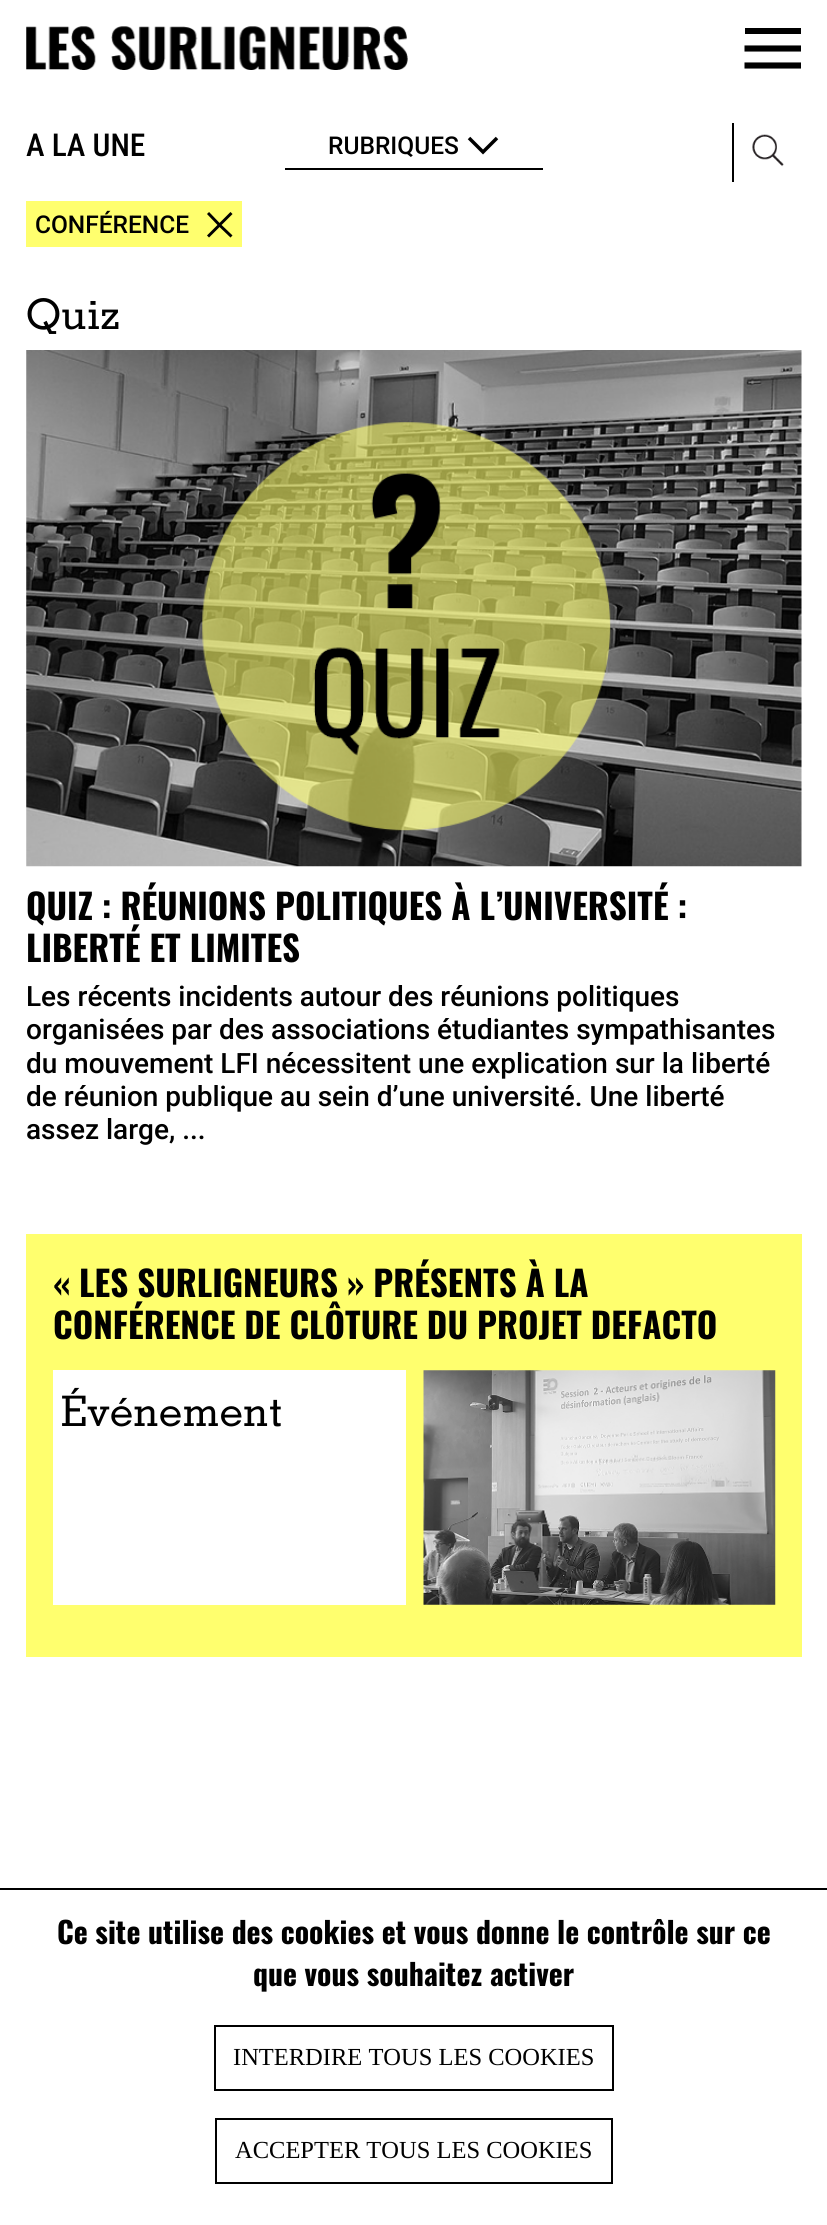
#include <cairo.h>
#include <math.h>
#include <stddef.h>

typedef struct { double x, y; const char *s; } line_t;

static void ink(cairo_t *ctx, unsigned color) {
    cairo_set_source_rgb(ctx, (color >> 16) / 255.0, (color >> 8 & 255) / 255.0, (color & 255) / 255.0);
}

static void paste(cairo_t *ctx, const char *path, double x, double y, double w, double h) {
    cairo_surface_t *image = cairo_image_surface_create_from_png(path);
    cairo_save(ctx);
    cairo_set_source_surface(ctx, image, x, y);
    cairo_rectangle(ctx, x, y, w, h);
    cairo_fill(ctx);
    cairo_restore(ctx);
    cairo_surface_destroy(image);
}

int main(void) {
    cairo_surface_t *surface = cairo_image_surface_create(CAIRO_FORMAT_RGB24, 827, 2225);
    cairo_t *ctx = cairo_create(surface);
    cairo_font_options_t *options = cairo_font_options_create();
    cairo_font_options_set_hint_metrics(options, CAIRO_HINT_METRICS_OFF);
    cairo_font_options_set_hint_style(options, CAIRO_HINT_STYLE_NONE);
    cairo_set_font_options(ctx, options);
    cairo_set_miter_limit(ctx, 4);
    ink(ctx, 0xFFFFFF);
    cairo_paint(ctx);
    paste(ctx, "media/1.png", 26, 26, 382, 44);
    ink(ctx, 0x000000);
    cairo_rectangle(ctx, 745, 28, 56, 6);
    cairo_fill(ctx);
    cairo_new_path(ctx);
    cairo_move_to(ctx, 744.5, 48.5);
    cairo_line_to(ctx, 801, 48.5);
    cairo_move_to(ctx, 744.5, 65.5);
    cairo_line_to(ctx, 801, 65.5);
    cairo_set_line_width(ctx, 6.1);
    cairo_stroke(ctx);
    cairo_select_font_face(ctx, "Roboto Condensed Medium", CAIRO_FONT_SLANT_NORMAL, CAIRO_FONT_WEIGHT_NORMAL);
    cairo_set_font_size(ctx, 31.5);
    cairo_move_to(ctx, 26, 156);
    cairo_show_text(ctx, "A LA UNE");
    cairo_rectangle(ctx, 285, 168, 258, 2);
    cairo_fill(ctx);
    cairo_select_font_face(ctx, "Roboto Medium", CAIRO_FONT_SLANT_NORMAL, CAIRO_FONT_WEIGHT_NORMAL);
    cairo_set_font_size(ctx, 24.5);
    cairo_move_to(ctx, 328, 154);
    cairo_show_text(ctx, "RUBRIQUES");
    cairo_new_path(ctx);
    cairo_move_to(ctx, 469, 138);
    cairo_line_to(ctx, 483, 152);
    cairo_line_to(ctx, 497, 138);
    cairo_set_line_width(ctx, 3.5);
    cairo_stroke(ctx);
    cairo_rectangle(ctx, 732, 123, 2, 59);
    cairo_fill(ctx);
    paste(ctx, "media/2.png", 752, 134, 32, 33);
    ink(ctx, 0xFFFF6E);
    cairo_rectangle(ctx, 26, 201, 216, 46);
    cairo_fill(ctx);
    ink(ctx, 0x000000);
    cairo_move_to(ctx, 35, 233);
    cairo_show_text(ctx, "CONFÉRENCE");
    cairo_new_path(ctx);
    cairo_move_to(ctx, 208, 213);
    cairo_line_to(ctx, 219.5, 225);
    cairo_line_to(ctx, 231.5, 213);
    cairo_move_to(ctx, 231.5, 236.5);
    cairo_line_to(ctx, 219.5, 225);
    cairo_line_to(ctx, 208, 236.5);
    cairo_set_line_width(ctx, 2.9);
    cairo_stroke(ctx);
    cairo_select_font_face(ctx, "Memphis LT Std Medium", CAIRO_FONT_SLANT_NORMAL, CAIRO_FONT_WEIGHT_NORMAL);
    cairo_set_font_size(ctx, 42);
    cairo_move_to(ctx, 26, 329);
    cairo_show_text(ctx, "Quiz");
    paste(ctx, "media/3.png", 26, 350, 776, 517);
    cairo_select_font_face(ctx, "Oswald", CAIRO_FONT_SLANT_NORMAL, CAIRO_FONT_WEIGHT_BOLD);
    cairo_set_font_size(ctx, 35);
    cairo_move_to(ctx, 26, 920);
    cairo_show_text(ctx, "QUIZ : RÉUNIONS POLITIQUES À L’UNIVERSITÉ :");
    cairo_move_to(ctx, 26, 962);
    cairo_show_text(ctx, "LIBERTÉ ET LIMITES");
    cairo_select_font_face(ctx, "Roboto Medium", CAIRO_FONT_SLANT_NORMAL, CAIRO_FONT_WEIGHT_NORMAL);
    cairo_set_font_size(ctx, 28);
    {
        static const line_t items[] = {
            {26, 1006, "Les récents incidents autour des réunions politiques"},
            {26, 1039, "organisées par des associations étudiantes sympathisantes"},
            {26, 1073, "du mouvement LFI nécessitent une explication sur la liberté"},
            {26, 1106, "de réunion publique au sein d’une université. Une liberté"},
            {26, 1139, "assez large, ..."},
        };
        for (size_t i = 0; i < sizeof items / sizeof *items; i++) {
            cairo_move_to(ctx, items[i].x, items[i].y);
            cairo_show_text(ctx, items[i].s);
        }
    }
    ink(ctx, 0xFFFF6E);
    cairo_rectangle(ctx, 26, 1234, 776, 423);
    cairo_fill(ctx);
    cairo_select_font_face(ctx, "Oswald", CAIRO_FONT_SLANT_NORMAL, CAIRO_FONT_WEIGHT_BOLD);
    cairo_set_font_size(ctx, 35);
    ink(ctx, 0x000000);
    cairo_move_to(ctx, 53, 1297);
    cairo_show_text(ctx, "« LES SURLIGNEURS » PRÉSENTS À LA");
    cairo_move_to(ctx, 53, 1339);
    cairo_show_text(ctx, "CONFÉRENCE DE CLÔTURE DU PROJET DEFACTO");
    ink(ctx, 0xFFFFFF);
    cairo_rectangle(ctx, 53, 1370, 353, 235);
    cairo_fill(ctx);
    cairo_select_font_face(ctx, "Memphis LT Std Medium", CAIRO_FONT_SLANT_NORMAL, CAIRO_FONT_WEIGHT_NORMAL);
    cairo_set_font_size(ctx, 42);
    ink(ctx, 0x000000);
    cairo_move_to(ctx, 61, 1426);
    cairo_show_text(ctx, "Événement");
    paste(ctx, "media/4.png", 423, 1370, 353, 235);
    cairo_rectangle(ctx, 0, 1888, 827, 2);
    cairo_fill(ctx);
    cairo_select_font_face(ctx, "Oswald", CAIRO_FONT_SLANT_NORMAL, CAIRO_FONT_WEIGHT_BOLD);
    cairo_set_font_size(ctx, 29.75);
    cairo_move_to(ctx, 57, 1944);
    cairo_show_text(ctx, "Ce site utilise des cookies et vous donne le contrôle sur ce");
    cairo_move_to(ctx, 253, 1986);
    cairo_show_text(ctx, "que vous souhaitez activer");
    cairo_rectangle(ctx, 215, 2026, 398, 64);
    cairo_set_line_width(ctx, 2);
    cairo_stroke(ctx);
    cairo_select_font_face(ctx, "Liberation Serif", CAIRO_FONT_SLANT_NORMAL, CAIRO_FONT_WEIGHT_NORMAL);
    cairo_set_font_size(ctx, 24.5);
    cairo_move_to(ctx, 233, 2065);
    cairo_show_text(ctx, "INTERDIRE TOUS LES COOKIES");
    cairo_rectangle(ctx, 216, 2119, 396, 64);
    cairo_stroke(ctx);
    cairo_move_to(ctx, 235, 2158);
    cairo_show_text(ctx, "ACCEPTER TOUS LES COOKIES");
    cairo_surface_write_to_png(surface, "image.png");
    cairo_font_options_destroy(options);
    cairo_destroy(ctx);
    cairo_surface_destroy(surface);
    return 0;
}
